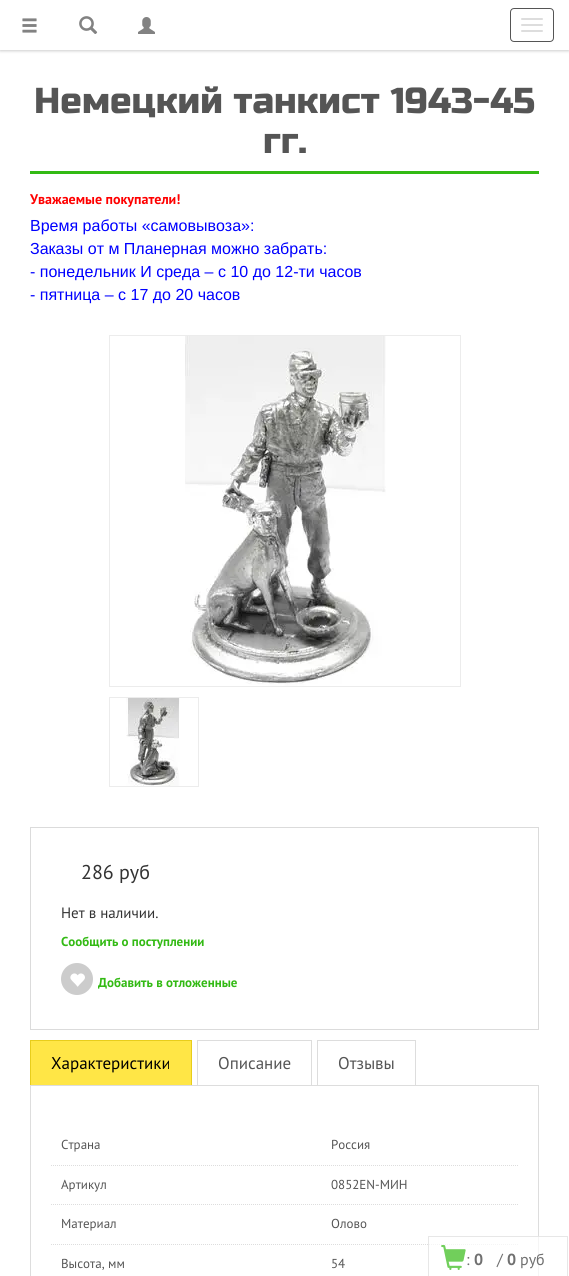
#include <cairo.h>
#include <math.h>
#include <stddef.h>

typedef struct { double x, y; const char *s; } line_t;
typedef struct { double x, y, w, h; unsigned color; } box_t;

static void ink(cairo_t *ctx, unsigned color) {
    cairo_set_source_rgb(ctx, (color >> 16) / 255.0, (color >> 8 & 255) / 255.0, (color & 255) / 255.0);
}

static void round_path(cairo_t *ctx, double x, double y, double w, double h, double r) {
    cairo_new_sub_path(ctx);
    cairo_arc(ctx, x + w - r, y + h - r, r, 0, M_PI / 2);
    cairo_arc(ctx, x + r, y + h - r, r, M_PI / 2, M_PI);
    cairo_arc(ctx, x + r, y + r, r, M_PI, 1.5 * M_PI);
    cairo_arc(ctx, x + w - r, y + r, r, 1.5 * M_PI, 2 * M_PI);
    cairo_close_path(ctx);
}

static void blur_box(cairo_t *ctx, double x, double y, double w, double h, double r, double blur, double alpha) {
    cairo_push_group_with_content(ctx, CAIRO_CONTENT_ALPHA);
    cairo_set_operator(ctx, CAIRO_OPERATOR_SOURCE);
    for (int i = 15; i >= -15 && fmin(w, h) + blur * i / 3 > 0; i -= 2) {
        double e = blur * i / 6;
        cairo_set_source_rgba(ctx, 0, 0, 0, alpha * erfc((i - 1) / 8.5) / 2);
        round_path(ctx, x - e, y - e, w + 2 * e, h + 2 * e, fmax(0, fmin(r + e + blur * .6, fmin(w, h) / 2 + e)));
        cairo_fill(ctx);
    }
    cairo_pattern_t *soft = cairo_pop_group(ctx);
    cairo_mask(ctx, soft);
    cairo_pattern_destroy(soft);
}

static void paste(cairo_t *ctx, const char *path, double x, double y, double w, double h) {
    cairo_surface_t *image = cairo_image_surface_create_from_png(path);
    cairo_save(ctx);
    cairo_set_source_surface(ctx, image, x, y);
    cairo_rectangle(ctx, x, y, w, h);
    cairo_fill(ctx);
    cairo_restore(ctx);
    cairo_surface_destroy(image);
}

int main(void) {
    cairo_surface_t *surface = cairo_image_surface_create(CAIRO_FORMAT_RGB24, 569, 1276);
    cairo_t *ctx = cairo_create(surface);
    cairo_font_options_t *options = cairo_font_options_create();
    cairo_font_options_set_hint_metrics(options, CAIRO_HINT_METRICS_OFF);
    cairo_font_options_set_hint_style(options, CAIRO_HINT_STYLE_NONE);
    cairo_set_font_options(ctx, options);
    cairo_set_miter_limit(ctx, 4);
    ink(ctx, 0xFFFFFF);
    cairo_paint(ctx);
    ink(ctx, 0x000000);
    blur_box(ctx, 0, 1, 569, 50, 0, 1.5, 0.2);
    ink(ctx, 0xFFFFFF);
    cairo_rectangle(ctx, 0, 0, 569, 50);
    cairo_fill(ctx);
    paste(ctx, "media/1.png", 22, 18, 15, 15);
    paste(ctx, "media/2.png", 79, 16, 19, 18);
    paste(ctx, "media/3.png", 138, 17, 17, 17);
    round_path(ctx, 510.5, 8.5, 43, 33, 3.5);
    ink(ctx, 0x555555);
    cairo_set_line_width(ctx, 1);
    cairo_stroke(ctx);
    ink(ctx, 0xDDDDDD);
    round_path(ctx, 521, 18, 22, 2, 1);
    cairo_fill(ctx);
    round_path(ctx, 521, 24, 22, 2, 1);
    cairo_fill(ctx);
    round_path(ctx, 521, 30, 22, 2, 1);
    cairo_fill(ctx);
    ink(ctx, 0x33BA14);
    cairo_rectangle(ctx, 30, 171, 509, 3);
    cairo_fill(ctx);
    cairo_select_font_face(ctx, "Russo One", CAIRO_FONT_SLANT_NORMAL, CAIRO_FONT_WEIGHT_NORMAL);
    cairo_set_font_size(ctx, 36);
    ink(ctx, 0x555555);
    cairo_move_to(ctx, 34, 113);
    cairo_show_text(ctx, "Немецкий танкист 1943-45");
    cairo_move_to(ctx, 263, 153);
    cairo_show_text(ctx, "гг.");
    cairo_select_font_face(ctx, "PT Sans", CAIRO_FONT_SLANT_NORMAL, CAIRO_FONT_WEIGHT_BOLD);
    cairo_set_font_size(ctx, 14);
    ink(ctx, 0xFF0000);
    cairo_move_to(ctx, 30, 204);
    cairo_show_text(ctx, "Уважаемые покупатели!");
    cairo_select_font_face(ctx, "Liberation Sans", CAIRO_FONT_SLANT_NORMAL, CAIRO_FONT_WEIGHT_NORMAL);
    cairo_set_font_size(ctx, 16);
    ink(ctx, 0x0000FF);
    {
        static const line_t items[] = {
            {30, 231, "Время работы «самовывоза»:"},
            {30, 254, "Заказы от м Планерная можно забрать:"},
            {30, 277, "- понедельник И среда – с 10 до 12-ти часов"},
            {30, 300, "- пятница – с 17 до 20 часов"},
        };
        for (size_t i = 0; i < sizeof items / sizeof *items; i++) {
            cairo_move_to(ctx, items[i].x, items[i].y);
            cairo_show_text(ctx, items[i].s);
        }
    }
    cairo_rectangle(ctx, 109.5, 335.5, 351, 351);
    ink(ctx, 0xECECEC);
    cairo_stroke(ctx);
    paste(ctx, "media/4.png", 185, 336, 201, 350);
    cairo_rectangle(ctx, 109.5, 697.5, 89, 89);
    cairo_stroke(ctx);
    paste(ctx, "media/5.png", 126, 698, 54, 88);
    cairo_rectangle(ctx, 30.5, 827.5, 508, 202);
    ink(ctx, 0xDBDBDB);
    cairo_stroke(ctx);
    cairo_select_font_face(ctx, "PT Sans", CAIRO_FONT_SLANT_NORMAL, CAIRO_FONT_WEIGHT_NORMAL);
    cairo_set_font_size(ctx, 20);
    ink(ctx, 0x333333);
    cairo_move_to(ctx, 81, 879);
    cairo_show_text(ctx, "286 руб");
    cairo_set_font_size(ctx, 15);
    cairo_move_to(ctx, 61, 918);
    cairo_show_text(ctx, "Нет в наличии.");
    cairo_select_font_face(ctx, "PT Sans", CAIRO_FONT_SLANT_NORMAL, CAIRO_FONT_WEIGHT_BOLD);
    cairo_set_font_size(ctx, 13);
    ink(ctx, 0x33BA14);
    cairo_move_to(ctx, 61, 946);
    cairo_show_text(ctx, "Сообщить о поступлении");
    ink(ctx, 0xCCCCCC);
    cairo_new_path(ctx);
    cairo_arc(ctx, 77, 979, 16, 0, 2 * M_PI);
    cairo_fill(ctx);
    paste(ctx, "media/6.png", 70, 973, 15, 14);
    ink(ctx, 0x33BA14);
    cairo_move_to(ctx, 98, 987);
    cairo_show_text(ctx, "Добавить в отложенные");
    {
        static const box_t items[] = {
            {31, 1041, 160, 44, 0xFFE646},
            {30, 1040, 162, 1, 0xE8CD1B},
            {191, 1040, 1, 45, 0xE8CD1B},
            {30, 1040, 1, 45, 0xE8CD1B},
        };
        for (size_t i = 0; i < sizeof items / sizeof *items; i++) {
            ink(ctx, items[i].color);
            cairo_rectangle(ctx, items[i].x, items[i].y, items[i].w, items[i].h);
            cairo_fill(ctx);
        }
    }
    cairo_select_font_face(ctx, "PT Sans", CAIRO_FONT_SLANT_NORMAL, CAIRO_FONT_WEIGHT_NORMAL);
    cairo_set_font_size(ctx, 17);
    ink(ctx, 0x000000);
    cairo_move_to(ctx, 51, 1069);
    cairo_show_text(ctx, "Характеристики");
    {
        static const box_t items[] = {
            {197, 1040, 115, 1, 0xDDDDDD},
            {311, 1040, 1, 45, 0xDDDDDD},
            {197, 1040, 1, 45, 0xDDDDDD},
        };
        for (size_t i = 0; i < sizeof items / sizeof *items; i++) {
            ink(ctx, items[i].color);
            cairo_rectangle(ctx, items[i].x, items[i].y, items[i].w, items[i].h);
            cairo_fill(ctx);
        }
    }
    ink(ctx, 0x555555);
    cairo_move_to(ctx, 218, 1069);
    cairo_show_text(ctx, "Описание");
    {
        static const box_t items[] = {
            {317, 1040, 99, 1, 0xDDDDDD},
            {415, 1040, 1, 45, 0xDDDDDD},
            {317, 1040, 1, 45, 0xDDDDDD},
        };
        for (size_t i = 0; i < sizeof items / sizeof *items; i++) {
            ink(ctx, items[i].color);
            cairo_rectangle(ctx, items[i].x, items[i].y, items[i].w, items[i].h);
            cairo_fill(ctx);
        }
    }
    ink(ctx, 0x555555);
    cairo_move_to(ctx, 338, 1069);
    cairo_show_text(ctx, "Отзывы");
    cairo_rectangle(ctx, 30.5, 1085.5, 508, 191);
    ink(ctx, 0xDDDDDD);
    cairo_stroke(ctx);
    cairo_new_path(ctx);
    cairo_move_to(ctx, 51, 1165.5);
    cairo_line_to(ctx, 518, 1165.5);
    cairo_set_dash(ctx, (double[]){1, 1}, 2, 0);
    cairo_stroke(ctx);
    cairo_set_font_size(ctx, 13);
    ink(ctx, 0x555555);
    cairo_move_to(ctx, 61, 1149);
    cairo_show_text(ctx, "Страна");
    cairo_move_to(ctx, 331, 1149);
    cairo_show_text(ctx, "Россия");
    cairo_new_path(ctx);
    cairo_move_to(ctx, 51, 1204.5);
    cairo_line_to(ctx, 518, 1204.5);
    ink(ctx, 0xDDDDDD);
    cairo_stroke(ctx);
    ink(ctx, 0x555555);
    cairo_move_to(ctx, 61, 1189);
    cairo_show_text(ctx, "Артикул");
    cairo_move_to(ctx, 331, 1189);
    cairo_show_text(ctx, "0852EN-МИН");
    cairo_new_path(ctx);
    cairo_move_to(ctx, 51, 1244.5);
    cairo_line_to(ctx, 518, 1244.5);
    ink(ctx, 0xDDDDDD);
    cairo_stroke(ctx);
    ink(ctx, 0x555555);
    {
        static const line_t items[] = {
            {61, 1228, "Материал"},
            {331, 1228, "Олово"},
            {61, 1268, "Высота, мм"},
            {331, 1268, "54"},
        };
        for (size_t i = 0; i < sizeof items / sizeof *items; i++) {
            cairo_move_to(ctx, items[i].x, items[i].y);
            cairo_show_text(ctx, items[i].s);
        }
    }
    cairo_set_source_rgba(ctx, 1, 1, 1, 0.7);
    cairo_rectangle(ctx, 429, 1236, 110, 40);
    cairo_fill(ctx);
    cairo_set_source_rgba(ctx, 0.867, 0.867, 0.867, 0.7);
    cairo_rectangle(ctx, 428, 1236, 140, 1);
    cairo_fill(ctx);
    ink(ctx, 0xE7E7E7);
    cairo_rectangle(ctx, 567, 1236, 1, 40);
    cairo_fill(ctx);
    cairo_rectangle(ctx, 428, 1236, 1, 40);
    cairo_fill(ctx);
    paste(ctx, "media/7.png", 441, 1245, 25, 25);
    cairo_set_font_size(ctx, 16);
    ink(ctx, 0x707070);
    cairo_move_to(ctx, 466, 1265);
    cairo_show_text(ctx, ":");
    cairo_select_font_face(ctx, "PT Sans", CAIRO_FONT_SLANT_NORMAL, CAIRO_FONT_WEIGHT_BOLD);
    cairo_move_to(ctx, 474, 1265);
    cairo_show_text(ctx, "0");
    cairo_select_font_face(ctx, "PT Sans", CAIRO_FONT_SLANT_NORMAL, CAIRO_FONT_WEIGHT_NORMAL);
    cairo_move_to(ctx, 497, 1265);
    cairo_show_text(ctx, "/");
    cairo_select_font_face(ctx, "PT Sans", CAIRO_FONT_SLANT_NORMAL, CAIRO_FONT_WEIGHT_BOLD);
    cairo_move_to(ctx, 507, 1265);
    cairo_show_text(ctx, "0");
    cairo_select_font_face(ctx, "PT Sans", CAIRO_FONT_SLANT_NORMAL, CAIRO_FONT_WEIGHT_NORMAL);
    cairo_move_to(ctx, 520, 1265);
    cairo_show_text(ctx, "руб");
    cairo_surface_write_to_png(surface, "image.png");
    cairo_font_options_destroy(options);
    cairo_destroy(ctx);
    cairo_surface_destroy(surface);
    return 0;
}
